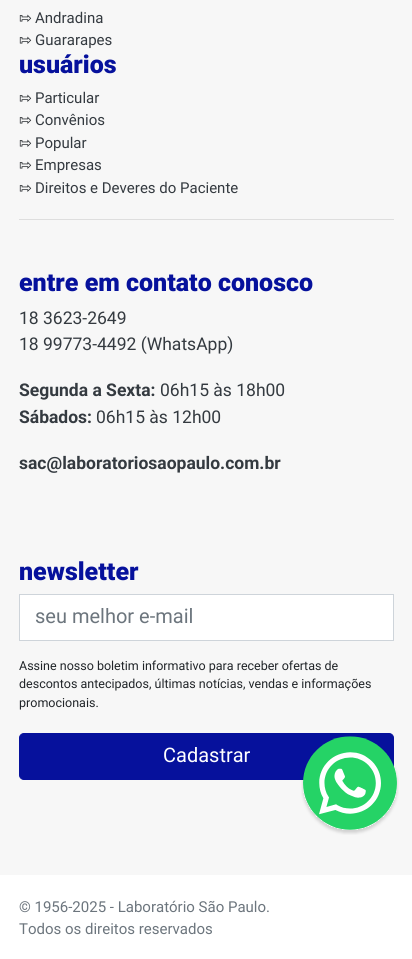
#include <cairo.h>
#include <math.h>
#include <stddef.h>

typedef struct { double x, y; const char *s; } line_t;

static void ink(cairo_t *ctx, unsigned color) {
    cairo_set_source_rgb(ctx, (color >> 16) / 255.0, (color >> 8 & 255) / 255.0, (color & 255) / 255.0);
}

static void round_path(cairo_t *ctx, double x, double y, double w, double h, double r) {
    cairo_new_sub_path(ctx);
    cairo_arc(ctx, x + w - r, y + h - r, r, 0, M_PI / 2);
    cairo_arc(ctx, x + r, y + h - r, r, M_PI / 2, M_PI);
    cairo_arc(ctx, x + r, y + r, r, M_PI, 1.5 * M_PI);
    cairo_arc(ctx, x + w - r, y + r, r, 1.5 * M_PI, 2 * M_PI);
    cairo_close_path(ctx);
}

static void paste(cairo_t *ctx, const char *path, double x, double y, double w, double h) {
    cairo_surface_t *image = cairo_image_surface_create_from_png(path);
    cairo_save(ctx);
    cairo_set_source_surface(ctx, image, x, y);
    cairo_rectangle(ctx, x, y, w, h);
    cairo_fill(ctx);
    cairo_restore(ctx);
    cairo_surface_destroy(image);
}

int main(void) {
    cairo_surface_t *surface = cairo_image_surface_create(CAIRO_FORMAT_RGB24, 412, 959);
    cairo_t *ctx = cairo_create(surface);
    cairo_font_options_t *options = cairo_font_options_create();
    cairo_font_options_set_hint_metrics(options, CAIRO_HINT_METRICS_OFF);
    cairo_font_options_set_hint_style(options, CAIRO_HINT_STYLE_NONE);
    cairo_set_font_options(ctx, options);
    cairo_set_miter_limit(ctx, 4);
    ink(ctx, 0xFFFFFF);
    cairo_paint(ctx);
    ink(ctx, 0xF7F7F7);
    cairo_rectangle(ctx, 0, 0, 412, 875);
    cairo_fill(ctx);
    cairo_select_font_face(ctx, "DejaVu Sans", CAIRO_FONT_SLANT_NORMAL, CAIRO_FONT_WEIGHT_NORMAL);
    cairo_set_font_size(ctx, 15);
    ink(ctx, 0x212529);
    cairo_move_to(ctx, 19, 23);
    cairo_show_text(ctx, "⇰");
    cairo_select_font_face(ctx, "Roboto", CAIRO_FONT_SLANT_NORMAL, CAIRO_FONT_WEIGHT_NORMAL);
    ink(ctx, 0x343A40);
    cairo_move_to(ctx, 35, 23);
    cairo_show_text(ctx, "Andradina");
    cairo_select_font_face(ctx, "DejaVu Sans", CAIRO_FONT_SLANT_NORMAL, CAIRO_FONT_WEIGHT_NORMAL);
    ink(ctx, 0x212529);
    cairo_move_to(ctx, 19, 45);
    cairo_show_text(ctx, "⇰");
    cairo_select_font_face(ctx, "Roboto", CAIRO_FONT_SLANT_NORMAL, CAIRO_FONT_WEIGHT_NORMAL);
    ink(ctx, 0x343A40);
    cairo_move_to(ctx, 35, 45);
    cairo_show_text(ctx, "Guararapes");
    cairo_select_font_face(ctx, "Roboto Black", CAIRO_FONT_SLANT_NORMAL, CAIRO_FONT_WEIGHT_NORMAL);
    cairo_set_font_size(ctx, 25);
    ink(ctx, 0x06119C);
    cairo_move_to(ctx, 19, 73);
    cairo_show_text(ctx, "usuários");
    cairo_select_font_face(ctx, "DejaVu Sans", CAIRO_FONT_SLANT_NORMAL, CAIRO_FONT_WEIGHT_NORMAL);
    cairo_set_font_size(ctx, 15);
    ink(ctx, 0x212529);
    cairo_move_to(ctx, 19, 103);
    cairo_show_text(ctx, "⇰");
    cairo_select_font_face(ctx, "Roboto", CAIRO_FONT_SLANT_NORMAL, CAIRO_FONT_WEIGHT_NORMAL);
    ink(ctx, 0x343A40);
    cairo_move_to(ctx, 35, 103);
    cairo_show_text(ctx, "Particular");
    cairo_select_font_face(ctx, "DejaVu Sans", CAIRO_FONT_SLANT_NORMAL, CAIRO_FONT_WEIGHT_NORMAL);
    ink(ctx, 0x212529);
    cairo_move_to(ctx, 19, 125);
    cairo_show_text(ctx, "⇰");
    cairo_select_font_face(ctx, "Roboto", CAIRO_FONT_SLANT_NORMAL, CAIRO_FONT_WEIGHT_NORMAL);
    ink(ctx, 0x343A40);
    cairo_move_to(ctx, 35, 125);
    cairo_show_text(ctx, "Convênios");
    cairo_select_font_face(ctx, "DejaVu Sans", CAIRO_FONT_SLANT_NORMAL, CAIRO_FONT_WEIGHT_NORMAL);
    ink(ctx, 0x212529);
    cairo_move_to(ctx, 19, 148);
    cairo_show_text(ctx, "⇰");
    cairo_select_font_face(ctx, "Roboto", CAIRO_FONT_SLANT_NORMAL, CAIRO_FONT_WEIGHT_NORMAL);
    ink(ctx, 0x343A40);
    cairo_move_to(ctx, 35, 148);
    cairo_show_text(ctx, "Popular");
    cairo_select_font_face(ctx, "DejaVu Sans", CAIRO_FONT_SLANT_NORMAL, CAIRO_FONT_WEIGHT_NORMAL);
    ink(ctx, 0x212529);
    cairo_move_to(ctx, 19, 170);
    cairo_show_text(ctx, "⇰");
    cairo_select_font_face(ctx, "Roboto", CAIRO_FONT_SLANT_NORMAL, CAIRO_FONT_WEIGHT_NORMAL);
    ink(ctx, 0x343A40);
    cairo_move_to(ctx, 35, 170);
    cairo_show_text(ctx, "Empresas");
    cairo_select_font_face(ctx, "DejaVu Sans", CAIRO_FONT_SLANT_NORMAL, CAIRO_FONT_WEIGHT_NORMAL);
    ink(ctx, 0x212529);
    cairo_move_to(ctx, 19, 193);
    cairo_show_text(ctx, "⇰");
    cairo_select_font_face(ctx, "Roboto", CAIRO_FONT_SLANT_NORMAL, CAIRO_FONT_WEIGHT_NORMAL);
    ink(ctx, 0x343A40);
    cairo_move_to(ctx, 35, 193);
    cairo_show_text(ctx, "Direitos e Deveres do Paciente");
    ink(ctx, 0xDEDEDE);
    cairo_rectangle(ctx, 19, 219, 375, 1);
    cairo_fill(ctx);
    cairo_select_font_face(ctx, "Roboto Black", CAIRO_FONT_SLANT_NORMAL, CAIRO_FONT_WEIGHT_NORMAL);
    cairo_set_font_size(ctx, 25);
    ink(ctx, 0x06119C);
    cairo_move_to(ctx, 19, 291);
    cairo_show_text(ctx, "entre em contato conosco");
    cairo_select_font_face(ctx, "Roboto", CAIRO_FONT_SLANT_NORMAL, CAIRO_FONT_WEIGHT_NORMAL);
    cairo_set_font_size(ctx, 17.5);
    ink(ctx, 0x343A40);
    cairo_move_to(ctx, 19, 324);
    cairo_show_text(ctx, "18 3623-2649");
    cairo_move_to(ctx, 19, 350);
    cairo_show_text(ctx, "18 99773-4492 (WhatsApp)");
    cairo_select_font_face(ctx, "Roboto", CAIRO_FONT_SLANT_NORMAL, CAIRO_FONT_WEIGHT_BOLD);
    cairo_move_to(ctx, 19, 396);
    cairo_show_text(ctx, "Segunda a Sexta:");
    cairo_select_font_face(ctx, "Roboto", CAIRO_FONT_SLANT_NORMAL, CAIRO_FONT_WEIGHT_NORMAL);
    cairo_move_to(ctx, 160, 396);
    cairo_show_text(ctx, "06h15 às 18h00");
    cairo_select_font_face(ctx, "Roboto", CAIRO_FONT_SLANT_NORMAL, CAIRO_FONT_WEIGHT_BOLD);
    cairo_move_to(ctx, 19, 423);
    cairo_show_text(ctx, "Sábados:");
    cairo_select_font_face(ctx, "Roboto", CAIRO_FONT_SLANT_NORMAL, CAIRO_FONT_WEIGHT_NORMAL);
    cairo_move_to(ctx, 96, 423);
    cairo_show_text(ctx, "06h15 às 12h00");
    cairo_select_font_face(ctx, "Roboto", CAIRO_FONT_SLANT_NORMAL, CAIRO_FONT_WEIGHT_BOLD);
    cairo_move_to(ctx, 19, 469);
    cairo_show_text(ctx, "sac@laboratoriosaopaulo.com.br");
    cairo_select_font_face(ctx, "Roboto Black", CAIRO_FONT_SLANT_NORMAL, CAIRO_FONT_WEIGHT_NORMAL);
    cairo_set_font_size(ctx, 25);
    ink(ctx, 0x06119C);
    cairo_move_to(ctx, 19, 580);
    cairo_show_text(ctx, "newsletter");
    ink(ctx, 0xFFFFFF);
    cairo_rectangle(ctx, 19.5, 594.5, 374, 46);
    cairo_fill_preserve(ctx);
    ink(ctx, 0xCED4DA);
    cairo_set_line_width(ctx, 1);
    cairo_stroke(ctx);
    cairo_select_font_face(ctx, "Roboto", CAIRO_FONT_SLANT_NORMAL, CAIRO_FONT_WEIGHT_NORMAL);
    cairo_set_font_size(ctx, 20);
    ink(ctx, 0x6C757D);
    cairo_move_to(ctx, 35, 623);
    cairo_show_text(ctx, "seu melhor e-mail");
    cairo_set_font_size(ctx, 12.5);
    ink(ctx, 0x212529);
    {
        static const line_t items[] = {
            {19, 670, "Assine nosso boletim informativo para receber ofertas de"},
            {19, 688, "descontos antecipados, últimas notícias, vendas e informações"},
            {19, 707, "promocionais."},
        };
        for (size_t i = 0; i < sizeof items / sizeof *items; i++) {
            cairo_move_to(ctx, items[i].x, items[i].y);
            cairo_show_text(ctx, items[i].s);
        }
    }
    ink(ctx, 0x06119C);
    round_path(ctx, 19.5, 733.5, 374, 46, 4.5);
    cairo_fill_preserve(ctx);
    cairo_stroke(ctx);
    cairo_set_font_size(ctx, 20);
    ink(ctx, 0xFFFFFF);
    cairo_move_to(ctx, 163, 762);
    cairo_show_text(ctx, "Cadastrar");
    paste(ctx, "media/1.png", 301, 736, 98, 99);
    cairo_set_font_size(ctx, 15);
    ink(ctx, 0x6C757D);
    cairo_move_to(ctx, 19, 912);
    cairo_show_text(ctx, "© 1956-2025 - Laboratório São Paulo.");
    cairo_move_to(ctx, 19, 934);
    cairo_show_text(ctx, "Todos os direitos reservados");
    cairo_surface_write_to_png(surface, "image.png");
    cairo_font_options_destroy(options);
    cairo_destroy(ctx);
    cairo_surface_destroy(surface);
    return 0;
}
